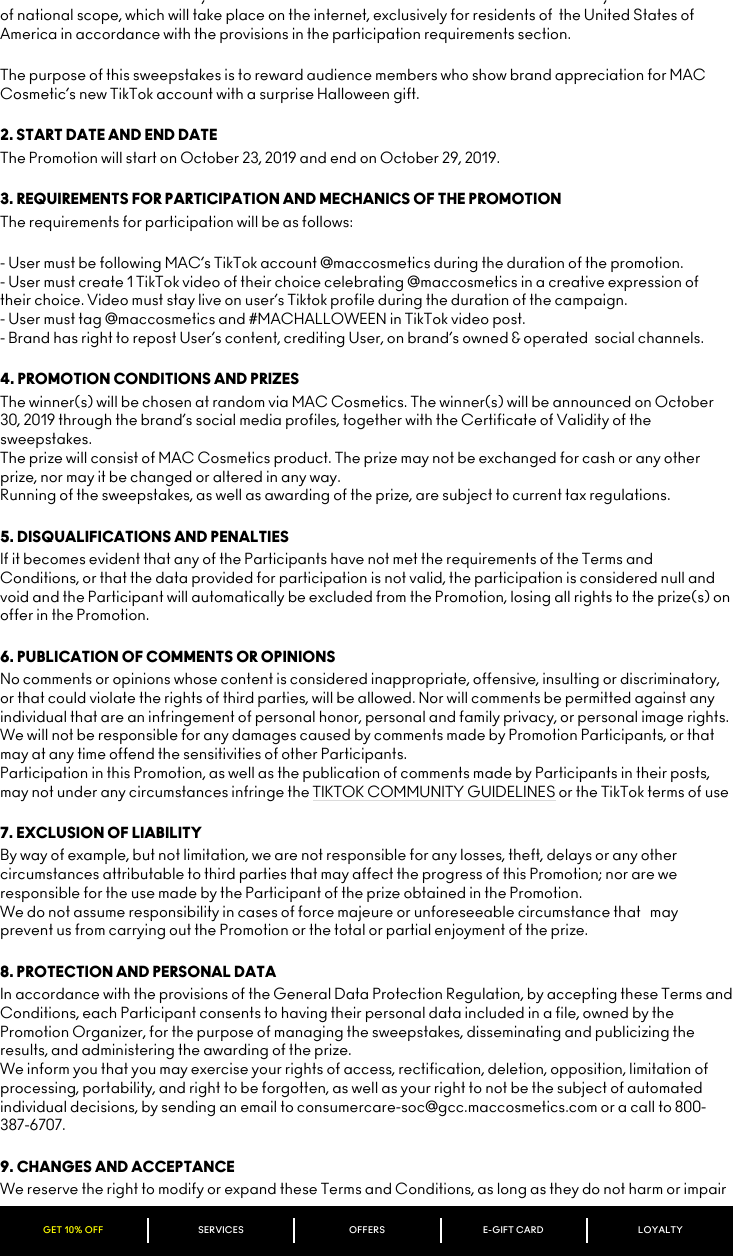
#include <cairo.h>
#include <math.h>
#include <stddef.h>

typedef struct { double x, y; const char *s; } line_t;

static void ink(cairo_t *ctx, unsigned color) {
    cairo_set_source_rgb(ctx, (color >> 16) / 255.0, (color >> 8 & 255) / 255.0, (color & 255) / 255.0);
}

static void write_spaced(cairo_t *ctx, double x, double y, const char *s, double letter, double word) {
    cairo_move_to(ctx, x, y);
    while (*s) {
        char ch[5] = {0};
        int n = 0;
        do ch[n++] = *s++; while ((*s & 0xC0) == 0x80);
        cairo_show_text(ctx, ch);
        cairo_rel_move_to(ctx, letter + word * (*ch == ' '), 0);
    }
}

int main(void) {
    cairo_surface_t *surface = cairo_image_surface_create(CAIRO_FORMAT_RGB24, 733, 1256);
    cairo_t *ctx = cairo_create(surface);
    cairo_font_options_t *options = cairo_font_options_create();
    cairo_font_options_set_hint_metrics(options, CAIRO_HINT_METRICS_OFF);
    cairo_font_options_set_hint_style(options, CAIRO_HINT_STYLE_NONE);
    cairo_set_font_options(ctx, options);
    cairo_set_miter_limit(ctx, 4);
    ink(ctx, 0xFFFFFF);
    cairo_paint(ctx);
    cairo_select_font_face(ctx, "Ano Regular", CAIRO_FONT_SLANT_NORMAL, CAIRO_FONT_WEIGHT_NORMAL);
    cairo_set_font_size(ctx, 15);
    ink(ctx, 0x000000);
    {
        static const line_t items[] = {
            {202, 2, ","},
            {604, 2, ","},
            {0, 20, "of national scope, which will take place on the internet, exclusively for residents of  the United States of"},
            {0, 39, "America in accordance with the provisions in the participation requirements section."},
            {0, 80, "The purpose of this sweepstakes is to reward audience members who show brand appreciation for MAC"},
            {0, 99, "Cosmetic’s new TikTok account with a surprise Halloween gift."},
        };
        for (size_t i = 0; i < sizeof items / sizeof *items; i++) {
            cairo_move_to(ctx, items[i].x, items[i].y);
            cairo_show_text(ctx, items[i].s);
        }
    }
    cairo_select_font_face(ctx, "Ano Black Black", CAIRO_FONT_SLANT_NORMAL, CAIRO_FONT_WEIGHT_NORMAL);
    cairo_move_to(ctx, 0, 140);
    cairo_show_text(ctx, "2. START DATE AND END DATE");
    cairo_select_font_face(ctx, "Ano Regular", CAIRO_FONT_SLANT_NORMAL, CAIRO_FONT_WEIGHT_NORMAL);
    cairo_move_to(ctx, 0, 163);
    cairo_show_text(ctx, "The Promotion will start on October 23, 2019 and end on October 29, 2019.");
    cairo_select_font_face(ctx, "Ano Black Black", CAIRO_FONT_SLANT_NORMAL, CAIRO_FONT_WEIGHT_NORMAL);
    cairo_move_to(ctx, 0, 204);
    cairo_show_text(ctx, "3. REQUIREMENTS FOR PARTICIPATION AND MECHANICS OF THE PROMOTION");
    cairo_select_font_face(ctx, "Ano Regular", CAIRO_FONT_SLANT_NORMAL, CAIRO_FONT_WEIGHT_NORMAL);
    {
        static const line_t items[] = {
            {0, 227, "The requirements for participation will be as follows:"},
            {0, 268, "- User must be following MAC’s TikTok account @maccosmetics during the duration of the promotion."},
            {0, 287, "- User must create 1 TikTok video of their choice celebrating @maccosmetics in a creative expression of"},
            {0, 305, "their choice. Video must stay live on user’s Tiktok profile during the duration of the campaign."},
            {0, 324, "- User must tag @maccosmetics and #MACHALLOWEEN in TikTok video post."},
            {0, 343, "- Brand has right to repost User’s content, crediting User, on brand’s owned & operated  social channels."},
        };
        for (size_t i = 0; i < sizeof items / sizeof *items; i++) {
            cairo_move_to(ctx, items[i].x, items[i].y);
            cairo_show_text(ctx, items[i].s);
        }
    }
    cairo_select_font_face(ctx, "Ano Black Black", CAIRO_FONT_SLANT_NORMAL, CAIRO_FONT_WEIGHT_NORMAL);
    cairo_move_to(ctx, 0, 384);
    cairo_show_text(ctx, "4. PROMOTION CONDITIONS AND PRIZES");
    cairo_select_font_face(ctx, "Ano Regular", CAIRO_FONT_SLANT_NORMAL, CAIRO_FONT_WEIGHT_NORMAL);
    {
        static const line_t items[] = {
            {0, 407, "The winner(s) will be chosen at random via MAC Cosmetics. The winner(s) will be announced on October"},
            {0, 425, "30, 2019 through the brand’s social media profiles, together with the Certificate of Validity of the"},
            {0, 444, "sweepstakes."},
            {0, 463, "The prize will consist of MAC Cosmetics product. The prize may not be exchanged for cash or any other"},
            {0, 482, "prize, nor may it be changed or altered in any way."},
            {0, 500, "Running of the sweepstakes, as well as awarding of the prize, are subject to current tax regulations."},
        };
        for (size_t i = 0; i < sizeof items / sizeof *items; i++) {
            cairo_move_to(ctx, items[i].x, items[i].y);
            cairo_show_text(ctx, items[i].s);
        }
    }
    cairo_select_font_face(ctx, "Ano Black Black", CAIRO_FONT_SLANT_NORMAL, CAIRO_FONT_WEIGHT_NORMAL);
    cairo_move_to(ctx, 0, 542);
    cairo_show_text(ctx, "5. DISQUALIFICATIONS AND PENALTIES");
    cairo_select_font_face(ctx, "Ano Regular", CAIRO_FONT_SLANT_NORMAL, CAIRO_FONT_WEIGHT_NORMAL);
    {
        static const line_t items[] = {
            {0, 564, "If it becomes evident that any of the Participants have not met the requirements of the Terms and"},
            {0, 583, "Conditions, or that the data provided for participation is not valid, the participation is considered null and"},
            {0, 602, "void and the Participant will automatically be excluded from the Promotion, losing all rights to the prize(s) on"},
            {0, 620, "offer in the Promotion."},
        };
        for (size_t i = 0; i < sizeof items / sizeof *items; i++) {
            cairo_move_to(ctx, items[i].x, items[i].y);
            cairo_show_text(ctx, items[i].s);
        }
    }
    cairo_select_font_face(ctx, "Ano Black Black", CAIRO_FONT_SLANT_NORMAL, CAIRO_FONT_WEIGHT_NORMAL);
    cairo_move_to(ctx, 0, 662);
    cairo_show_text(ctx, "6. PUBLICATION OF COMMENTS OR OPINIONS");
    cairo_select_font_face(ctx, "Ano Regular", CAIRO_FONT_SLANT_NORMAL, CAIRO_FONT_WEIGHT_NORMAL);
    {
        static const line_t items[] = {
            {0, 684, "No comments or opinions whose content is considered inappropriate, offensive, insulting or discriminatory,"},
            {0, 703, "or that could violate the rights of third parties, will be allowed. Nor will comments be permitted against any"},
            {0, 722, "individual that are an infringement of personal honor, personal and family privacy, or personal image rights."},
            {0, 740, "We will not be responsible for any damages caused by comments made by Promotion Participants, or that"},
            {0, 759, "may at any time offend the sensitivities of other Participants."},
            {0, 778, "Participation in this Promotion, as well as the publication of comments made by Participants in their posts,"},
            {0, 797, "may not under any circumstances infringe the TIKTOK COMMUNITY GUIDELINES or the TikTok terms of use"},
        };
        for (size_t i = 0; i < sizeof items / sizeof *items; i++) {
            cairo_move_to(ctx, items[i].x, items[i].y);
            cairo_show_text(ctx, items[i].s);
        }
    }
    ink(ctx, 0xDBDBDB);
    cairo_rectangle(ctx, 313, 800, 243, 1);
    cairo_fill(ctx);
    cairo_select_font_face(ctx, "Ano Black Black", CAIRO_FONT_SLANT_NORMAL, CAIRO_FONT_WEIGHT_NORMAL);
    ink(ctx, 0x000000);
    cairo_move_to(ctx, 0, 838);
    cairo_show_text(ctx, "7. EXCLUSION OF LIABILITY");
    cairo_select_font_face(ctx, "Ano Regular", CAIRO_FONT_SLANT_NORMAL, CAIRO_FONT_WEIGHT_NORMAL);
    {
        static const line_t items[] = {
            {0, 860, "By way of example, but not limitation, we are not responsible for any losses, theft, delays or any other"},
            {0, 879, "circumstances attributable to third parties that may affect the progress of this Promotion; nor are we"},
            {0, 898, "responsible for the use made by the Participant of the prize obtained in the Promotion."},
            {0, 917, "We do not assume responsibility in cases of force majeure or unforeseeable circumstance that   may"},
            {0, 935, "prevent us from carrying out the Promotion or the total or partial enjoyment of the prize."},
        };
        for (size_t i = 0; i < sizeof items / sizeof *items; i++) {
            cairo_move_to(ctx, items[i].x, items[i].y);
            cairo_show_text(ctx, items[i].s);
        }
    }
    cairo_select_font_face(ctx, "Ano Black Black", CAIRO_FONT_SLANT_NORMAL, CAIRO_FONT_WEIGHT_NORMAL);
    cairo_move_to(ctx, 0, 977);
    cairo_show_text(ctx, "8. PROTECTION AND PERSONAL DATA");
    cairo_select_font_face(ctx, "Ano Regular", CAIRO_FONT_SLANT_NORMAL, CAIRO_FONT_WEIGHT_NORMAL);
    {
        static const line_t items[] = {
            {0, 999, "In accordance with the provisions of the General Data Protection Regulation, by accepting these Terms and"},
            {0, 1018, "Conditions, each Participant consents to having their personal data included in a file, owned by the"},
            {0, 1037, "Promotion Organizer, for the purpose of managing the sweepstakes, disseminating and publicizing the"},
            {0, 1055, "results, and administering the awarding of the prize."},
            {0, 1074, "We inform you that you may exercise your rights of access, rectification, deletion, opposition, limitation of"},
            {0, 1093, "processing, portability, and right to be forgotten, as well as your right to not be the subject of automated"},
            {0, 1112, "individual decisions, by sending an email to consumercare-soc@gcc.maccosmetics.com or a call to 800-"},
            {0, 1130, "387-6707."},
        };
        for (size_t i = 0; i < sizeof items / sizeof *items; i++) {
            cairo_move_to(ctx, items[i].x, items[i].y);
            cairo_show_text(ctx, items[i].s);
        }
    }
    cairo_select_font_face(ctx, "Ano Black Black", CAIRO_FONT_SLANT_NORMAL, CAIRO_FONT_WEIGHT_NORMAL);
    cairo_move_to(ctx, 0, 1172);
    cairo_show_text(ctx, "9. CHANGES AND ACCEPTANCE");
    cairo_select_font_face(ctx, "Ano Regular", CAIRO_FONT_SLANT_NORMAL, CAIRO_FONT_WEIGHT_NORMAL);
    cairo_move_to(ctx, 0, 1194);
    cairo_show_text(ctx, "We reserve the right to modify or expand these Terms and Conditions, as long as they do not harm or impair");
    cairo_rectangle(ctx, 0, 1206, 733, 50);
    cairo_fill(ctx);
    cairo_select_font_face(ctx, "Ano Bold", CAIRO_FONT_SLANT_NORMAL, CAIRO_FONT_WEIGHT_BOLD);
    cairo_set_font_size(ctx, 9);
    ink(ctx, 0xFFFF00);
    write_spaced(ctx, 43, 1233, "GET 10% OFF", 0.25, 0);
    ink(ctx, 0xFFFFFF);
    cairo_rectangle(ctx, 147, 1218, 2, 25);
    cairo_fill(ctx);
    write_spaced(ctx, 198, 1233, "SERVICES", 0.25, 0);
    cairo_rectangle(ctx, 293, 1218, 2, 25);
    cairo_fill(ctx);
    write_spaced(ctx, 349, 1233, "OFFERS", 0.25, 0);
    cairo_rectangle(ctx, 440, 1218, 2, 25);
    cairo_fill(ctx);
    write_spaced(ctx, 483, 1233, "E-GIFT CARD", 0.25, 0);
    cairo_rectangle(ctx, 586, 1218, 2, 25);
    cairo_fill(ctx);
    write_spaced(ctx, 638, 1233, "LOYALTY", 0.25, 0);
    cairo_surface_write_to_png(surface, "image.png");
    cairo_font_options_destroy(options);
    cairo_destroy(ctx);
    cairo_surface_destroy(surface);
    return 0;
}
